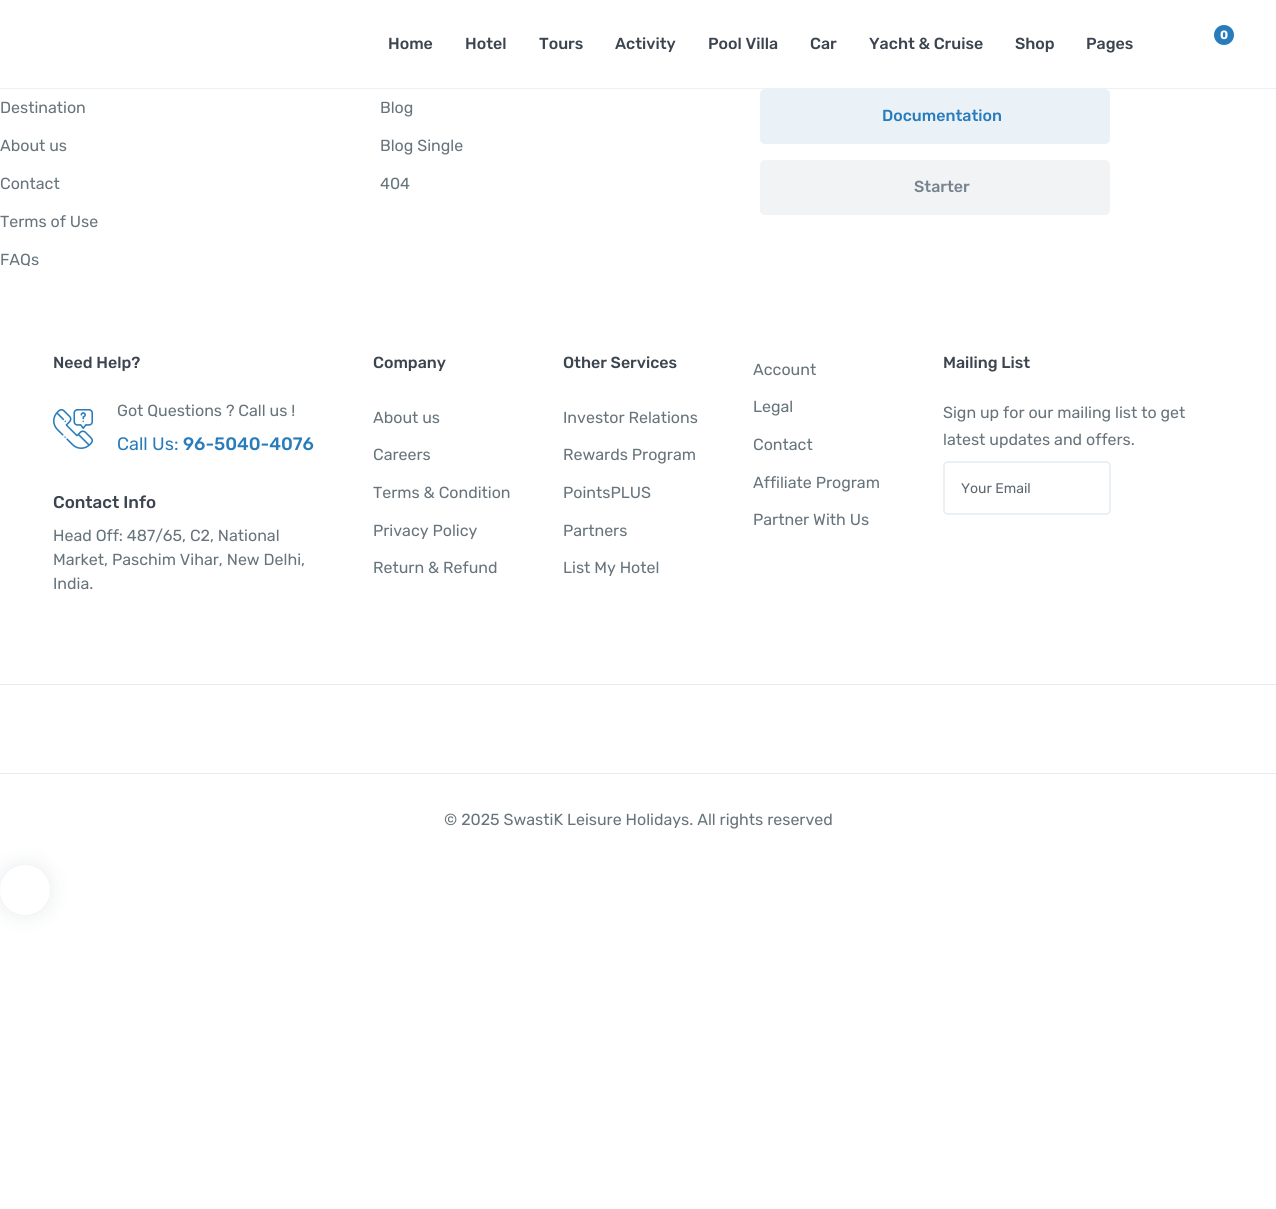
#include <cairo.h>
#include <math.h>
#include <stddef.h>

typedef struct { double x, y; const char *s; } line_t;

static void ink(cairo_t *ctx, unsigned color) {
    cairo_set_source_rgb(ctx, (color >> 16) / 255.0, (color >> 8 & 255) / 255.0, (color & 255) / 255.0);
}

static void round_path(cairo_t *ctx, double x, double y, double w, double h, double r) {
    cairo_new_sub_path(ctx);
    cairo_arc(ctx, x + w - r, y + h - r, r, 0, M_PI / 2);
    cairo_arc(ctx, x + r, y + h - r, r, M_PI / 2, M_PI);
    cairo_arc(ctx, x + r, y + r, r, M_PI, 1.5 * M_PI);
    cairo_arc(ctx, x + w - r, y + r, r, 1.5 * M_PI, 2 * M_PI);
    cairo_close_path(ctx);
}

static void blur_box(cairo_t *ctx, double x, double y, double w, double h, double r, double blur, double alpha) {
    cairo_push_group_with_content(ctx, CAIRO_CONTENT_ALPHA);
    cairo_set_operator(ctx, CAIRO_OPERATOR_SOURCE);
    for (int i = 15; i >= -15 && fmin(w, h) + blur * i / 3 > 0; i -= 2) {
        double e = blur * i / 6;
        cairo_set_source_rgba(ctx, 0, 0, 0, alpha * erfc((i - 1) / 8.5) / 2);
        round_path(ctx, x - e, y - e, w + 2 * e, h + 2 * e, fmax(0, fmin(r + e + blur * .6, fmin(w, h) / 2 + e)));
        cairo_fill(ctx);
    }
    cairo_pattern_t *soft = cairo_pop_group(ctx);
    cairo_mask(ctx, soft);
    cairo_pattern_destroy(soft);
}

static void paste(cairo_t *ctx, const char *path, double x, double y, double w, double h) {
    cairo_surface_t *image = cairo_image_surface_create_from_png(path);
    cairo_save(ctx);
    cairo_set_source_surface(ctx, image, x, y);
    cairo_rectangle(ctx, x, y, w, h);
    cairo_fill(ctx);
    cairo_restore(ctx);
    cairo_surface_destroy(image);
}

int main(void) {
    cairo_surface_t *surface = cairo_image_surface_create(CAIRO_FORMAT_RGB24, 1276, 1209);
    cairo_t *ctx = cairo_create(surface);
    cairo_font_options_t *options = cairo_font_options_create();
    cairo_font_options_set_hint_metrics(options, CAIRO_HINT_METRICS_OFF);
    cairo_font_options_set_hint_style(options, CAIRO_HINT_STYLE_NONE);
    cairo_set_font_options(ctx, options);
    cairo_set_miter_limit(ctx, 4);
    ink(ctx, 0xFFFFFF);
    cairo_paint(ctx);
    ink(ctx, 0xEBF0F7);
    cairo_rectangle(ctx, 0, 88, 1276, 1);
    cairo_fill(ctx);
    ink(ctx, 0x297CBB);
    cairo_arc(ctx, 1224, 35, 10, 0, 2 * M_PI);
    cairo_fill(ctx);
    cairo_select_font_face(ctx, "Rubik", CAIRO_FONT_SLANT_NORMAL, CAIRO_FONT_WEIGHT_BOLD);
    cairo_set_font_size(ctx, 12);
    ink(ctx, 0xFFFFFF);
    cairo_move_to(ctx, 1220, 39);
    cairo_show_text(ctx, "0");
    cairo_select_font_face(ctx, "Rubik Medium", CAIRO_FONT_SLANT_NORMAL, CAIRO_FONT_WEIGHT_NORMAL);
    cairo_set_font_size(ctx, 16);
    ink(ctx, 0x3B444F);
    {
        static const line_t items[] = {
            {388, 49, "Home"},
            {465, 49, "Hotel"},
            {539, 49, "Tours"},
            {615, 49, "Activity"},
            {708, 49, "Pool Villa"},
            {810, 49, "Car"},
            {869, 49, "Yacht & Cruise"},
            {1015, 49, "Shop"},
            {1086, 49, "Pages"},
        };
        for (size_t i = 0; i < sizeof items / sizeof *items; i++) {
            cairo_move_to(ctx, items[i].x, items[i].y);
            cairo_show_text(ctx, items[i].s);
        }
    }
    cairo_select_font_face(ctx, "Rubik", CAIRO_FONT_SLANT_NORMAL, CAIRO_FONT_WEIGHT_NORMAL);
    ink(ctx, 0x67747C);
    {
        static const line_t items[] = {
            {0, 113, "Destination"},
            {0, 151, "About us"},
            {0, 189, "Contact"},
            {0, 227, "Terms of Use"},
            {0, 265, "FAQs"},
            {380, 113, "Blog"},
            {380, 151, "Blog Single"},
            {380, 189, "404"},
        };
        for (size_t i = 0; i < sizeof items / sizeof *items; i++) {
            cairo_move_to(ctx, items[i].x, items[i].y);
            cairo_show_text(ctx, items[i].s);
        }
    }
    ink(ctx, 0xEAF2F8);
    round_path(ctx, 760, 89, 350, 55, 5);
    cairo_fill(ctx);
    cairo_select_font_face(ctx, "Rubik Medium", CAIRO_FONT_SLANT_NORMAL, CAIRO_FONT_WEIGHT_NORMAL);
    ink(ctx, 0x297CBB);
    cairo_move_to(ctx, 882, 121);
    cairo_show_text(ctx, "Documentation");
    ink(ctx, 0xF1F3F4);
    round_path(ctx, 760, 160, 350, 55, 5);
    cairo_fill(ctx);
    ink(ctx, 0x77838F);
    cairo_move_to(ctx, 914, 192);
    cairo_show_text(ctx, "Starter");
    ink(ctx, 0x3B444F);
    cairo_move_to(ctx, 53, 368);
    cairo_show_text(ctx, "Need Help?");
    paste(ctx, "media/1.png", 53, 409, 40, 40);
    cairo_select_font_face(ctx, "Rubik", CAIRO_FONT_SLANT_NORMAL, CAIRO_FONT_WEIGHT_NORMAL);
    ink(ctx, 0x67747C);
    cairo_move_to(ctx, 117, 416);
    cairo_show_text(ctx, "Got Questions ? Call us !");
    cairo_set_font_size(ctx, 18);
    ink(ctx, 0x297CBB);
    cairo_move_to(ctx, 117, 450);
    cairo_show_text(ctx, "Call Us:");
    cairo_select_font_face(ctx, "Rubik Medium", CAIRO_FONT_SLANT_NORMAL, CAIRO_FONT_WEIGHT_NORMAL);
    cairo_move_to(ctx, 183, 450);
    cairo_show_text(ctx, "96-5040-4076");
    cairo_set_font_size(ctx, 17);
    ink(ctx, 0x3B444F);
    cairo_move_to(ctx, 53, 508);
    cairo_show_text(ctx, "Contact Info");
    cairo_select_font_face(ctx, "Rubik", CAIRO_FONT_SLANT_NORMAL, CAIRO_FONT_WEIGHT_NORMAL);
    cairo_set_font_size(ctx, 16);
    ink(ctx, 0x67747C);
    {
        static const line_t items[] = {
            {53, 541, "Head Off: 487/65, C2, National"},
            {53, 565, "Market, Paschim Vihar, New Delhi,"},
            {53, 589, "India."},
        };
        for (size_t i = 0; i < sizeof items / sizeof *items; i++) {
            cairo_move_to(ctx, items[i].x, items[i].y);
            cairo_show_text(ctx, items[i].s);
        }
    }
    cairo_select_font_face(ctx, "Rubik Medium", CAIRO_FONT_SLANT_NORMAL, CAIRO_FONT_WEIGHT_NORMAL);
    ink(ctx, 0x3B444F);
    cairo_move_to(ctx, 373, 368);
    cairo_show_text(ctx, "Company");
    cairo_select_font_face(ctx, "Rubik", CAIRO_FONT_SLANT_NORMAL, CAIRO_FONT_WEIGHT_NORMAL);
    ink(ctx, 0x67747C);
    {
        static const line_t items[] = {
            {373, 423, "About us"},
            {373, 460, "Careers"},
            {373, 498, "Terms & Condition"},
            {373, 536, "Privacy Policy"},
            {373, 573, "Return & Refund"},
        };
        for (size_t i = 0; i < sizeof items / sizeof *items; i++) {
            cairo_move_to(ctx, items[i].x, items[i].y);
            cairo_show_text(ctx, items[i].s);
        }
    }
    cairo_select_font_face(ctx, "Rubik Medium", CAIRO_FONT_SLANT_NORMAL, CAIRO_FONT_WEIGHT_NORMAL);
    ink(ctx, 0x3B444F);
    cairo_move_to(ctx, 563, 368);
    cairo_show_text(ctx, "Other Services");
    cairo_select_font_face(ctx, "Rubik", CAIRO_FONT_SLANT_NORMAL, CAIRO_FONT_WEIGHT_NORMAL);
    ink(ctx, 0x67747C);
    {
        static const line_t items[] = {
            {563, 423, "Investor Relations"},
            {563, 460, "Rewards Program"},
            {563, 498, "PointsPLUS"},
            {563, 536, "Partners"},
            {563, 573, "List My Hotel"},
            {753, 375, "Account"},
            {753, 412, "Legal"},
            {753, 450, "Contact"},
            {753, 488, "Affiliate Program"},
            {753, 525, "Partner With Us"},
        };
        for (size_t i = 0; i < sizeof items / sizeof *items; i++) {
            cairo_move_to(ctx, items[i].x, items[i].y);
            cairo_show_text(ctx, items[i].s);
        }
    }
    cairo_select_font_face(ctx, "Rubik Medium", CAIRO_FONT_SLANT_NORMAL, CAIRO_FONT_WEIGHT_NORMAL);
    ink(ctx, 0x3B444F);
    cairo_move_to(ctx, 943, 368);
    cairo_show_text(ctx, "Mailing List");
    cairo_select_font_face(ctx, "Rubik", CAIRO_FONT_SLANT_NORMAL, CAIRO_FONT_WEIGHT_NORMAL);
    ink(ctx, 0x67747C);
    cairo_move_to(ctx, 943, 418);
    cairo_show_text(ctx, "Sign up for our mailing list to get");
    cairo_move_to(ctx, 943, 445);
    cairo_show_text(ctx, "latest updates and offers.");
    round_path(ctx, 944, 462, 166, 52, 4);
    ink(ctx, 0xEBF0F7);
    cairo_stroke(ctx);
    cairo_set_font_size(ctx, 14);
    ink(ctx, 0x5C6770);
    cairo_move_to(ctx, 961, 493);
    cairo_show_text(ctx, "Your Email");
    ink(ctx, 0xE7EAF3);
    cairo_rectangle(ctx, 0, 684, 1276, 1);
    cairo_fill(ctx);
    cairo_rectangle(ctx, 0, 773, 1276, 1);
    cairo_fill(ctx);
    cairo_set_font_size(ctx, 16);
    ink(ctx, 0x67747C);
    cairo_move_to(ctx, 444, 825);
    cairo_show_text(ctx, "© 2025 SwastiK Leisure Holidays. All rights reserved");
    ink(ctx, 0x8C98A4);
    blur_box(ctx, 0, 865, 50, 50, 25, 10, 0.2);
    ink(ctx, 0xFFFFFF);
    cairo_arc(ctx, 25, 890, 25, 0, 2 * M_PI);
    cairo_fill(ctx);
    cairo_surface_write_to_png(surface, "image.png");
    cairo_font_options_destroy(options);
    cairo_destroy(ctx);
    cairo_surface_destroy(surface);
    return 0;
}
